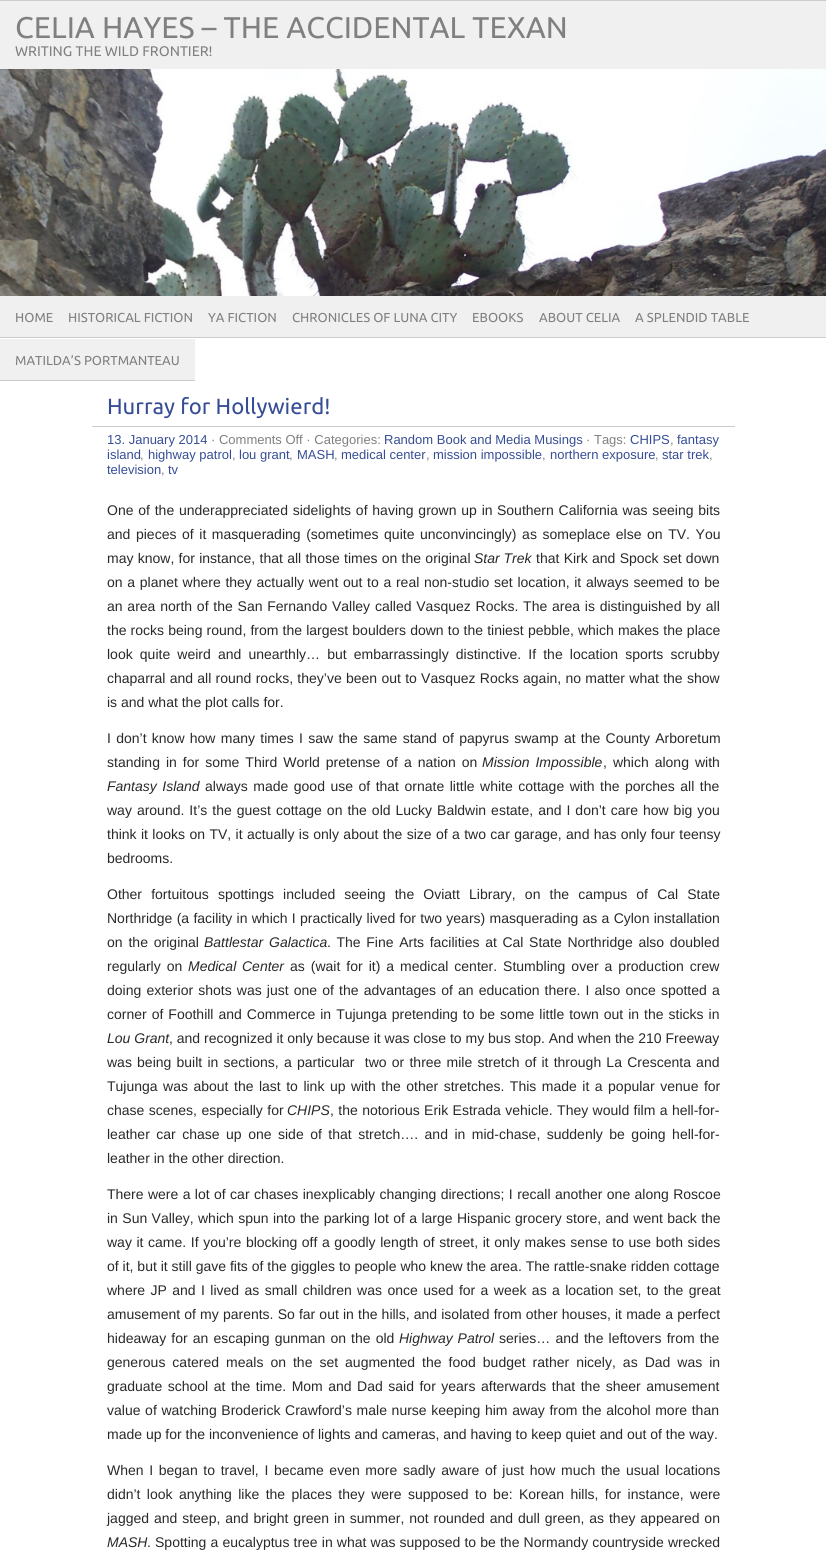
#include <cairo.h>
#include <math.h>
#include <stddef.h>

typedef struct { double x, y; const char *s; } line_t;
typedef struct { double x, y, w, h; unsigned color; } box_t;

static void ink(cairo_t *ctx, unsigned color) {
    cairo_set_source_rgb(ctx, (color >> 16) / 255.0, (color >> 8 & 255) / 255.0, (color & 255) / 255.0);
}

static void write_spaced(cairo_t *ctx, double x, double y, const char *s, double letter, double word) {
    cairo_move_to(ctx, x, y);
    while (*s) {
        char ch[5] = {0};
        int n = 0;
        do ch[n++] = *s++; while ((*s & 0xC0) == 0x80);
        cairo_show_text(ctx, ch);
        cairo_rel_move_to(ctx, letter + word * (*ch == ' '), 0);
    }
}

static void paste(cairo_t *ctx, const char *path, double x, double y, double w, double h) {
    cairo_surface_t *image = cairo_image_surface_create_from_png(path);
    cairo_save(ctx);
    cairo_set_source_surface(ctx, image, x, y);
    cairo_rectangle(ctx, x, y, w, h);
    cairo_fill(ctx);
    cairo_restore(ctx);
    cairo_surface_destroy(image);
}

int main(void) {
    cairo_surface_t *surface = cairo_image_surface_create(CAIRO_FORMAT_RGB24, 826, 1554);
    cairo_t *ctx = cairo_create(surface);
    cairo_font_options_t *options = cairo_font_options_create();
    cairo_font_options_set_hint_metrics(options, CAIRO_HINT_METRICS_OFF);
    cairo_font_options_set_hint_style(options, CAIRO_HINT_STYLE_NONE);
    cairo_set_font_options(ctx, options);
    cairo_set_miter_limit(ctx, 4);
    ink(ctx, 0xFFFFFF);
    cairo_paint(ctx);
    {
        static const box_t items[] = {
            {0, 1, 826, 336, 0xF0F0F0},
            {0, 0, 826, 1, 0xCCCCCC},
            {750, 337, 76, 1, 0xCCCCCC},
        };
        for (size_t i = 0; i < sizeof items / sizeof *items; i++) {
            ink(ctx, items[i].color);
            cairo_rectangle(ctx, items[i].x, items[i].y, items[i].w, items[i].h);
            cairo_fill(ctx);
        }
    }
    cairo_select_font_face(ctx, "Ubuntu", CAIRO_FONT_SLANT_NORMAL, CAIRO_FONT_WEIGHT_NORMAL);
    cairo_set_font_size(ctx, 30);
    ink(ctx, 0x808080);
    cairo_move_to(ctx, 15, 38);
    cairo_show_text(ctx, "CELIA HAYES – THE ACCIDENTAL TEXAN");
    cairo_set_font_size(ctx, 14);
    cairo_move_to(ctx, 15, 56);
    cairo_show_text(ctx, "WRITING THE WILD FRONTIER!");
    paste(ctx, "media/1.png", 0, 69, 826, 227);
    ink(ctx, 0xCCCCCC);
    cairo_rectangle(ctx, 0, 337, 750, 1);
    cairo_fill(ctx);
    cairo_set_font_size(ctx, 13);
    ink(ctx, 0x808080);
    {
        static const line_t items[] = {
            {15, 322, "HOME"},
            {68, 322, "HISTORICAL FICTION"},
            {208, 322, "YA FICTION"},
            {292, 322, "CHRONICLES OF LUNA CITY"},
        };
        for (size_t i = 0; i < sizeof items / sizeof *items; i++) {
            cairo_move_to(ctx, items[i].x, items[i].y);
            cairo_show_text(ctx, items[i].s);
        }
    }
    ink(ctx, 0xF0F0F0);
    cairo_rectangle(ctx, 457, 313, 1, 1);
    cairo_fill(ctx);
    ink(ctx, 0x808080);
    {
        static const line_t items[] = {
            {472, 322, "EBOOKS"},
            {539, 322, "ABOUT CELIA"},
            {635, 322, "A SPLENDID TABLE"},
        };
        for (size_t i = 0; i < sizeof items / sizeof *items; i++) {
            cairo_move_to(ctx, items[i].x, items[i].y);
            cairo_show_text(ctx, items[i].s);
        }
    }
    ink(ctx, 0xF0F0F0);
    cairo_rectangle(ctx, 0, 339, 195, 41);
    cairo_fill(ctx);
    ink(ctx, 0xCCCCCC);
    cairo_rectangle(ctx, 0, 380, 195, 1);
    cairo_fill(ctx);
    ink(ctx, 0x808080);
    cairo_move_to(ctx, 15, 365);
    cairo_show_text(ctx, "MATILDA’S PORTMANTEAU");
    cairo_set_font_size(ctx, 22);
    ink(ctx, 0x364D96);
    cairo_move_to(ctx, 107, 414);
    cairo_show_text(ctx, "Hurray for Hollywierd!");
    ink(ctx, 0xCCCCCC);
    cairo_rectangle(ctx, 92, 426, 643, 1);
    cairo_fill(ctx);
    cairo_select_font_face(ctx, "Liberation Sans", CAIRO_FONT_SLANT_NORMAL, CAIRO_FONT_WEIGHT_NORMAL);
    cairo_set_font_size(ctx, 13);
    ink(ctx, 0x364D96);
    cairo_move_to(ctx, 107, 444);
    cairo_show_text(ctx, "13. January 2014");
    ink(ctx, 0x808080);
    cairo_move_to(ctx, 211, 444);
    cairo_show_text(ctx, "· Comments Off · Categories:");
    ink(ctx, 0x364D96);
    cairo_move_to(ctx, 384, 444);
    cairo_show_text(ctx, "Random Book and Media Musings");
    ink(ctx, 0x808080);
    cairo_move_to(ctx, 586, 444);
    cairo_show_text(ctx, "· Tags:");
    ink(ctx, 0x364D96);
    cairo_move_to(ctx, 630, 444);
    cairo_show_text(ctx, "CHIPS");
    ink(ctx, 0x808080);
    cairo_move_to(ctx, 670, 444);
    cairo_show_text(ctx, ",");
    ink(ctx, 0x364D96);
    cairo_move_to(ctx, 677, 444);
    cairo_show_text(ctx, "fantasy");
    cairo_move_to(ctx, 107, 459);
    cairo_show_text(ctx, "island");
    ink(ctx, 0x808080);
    cairo_move_to(ctx, 140, 459);
    cairo_show_text(ctx, ",");
    ink(ctx, 0x364D96);
    cairo_move_to(ctx, 148, 459);
    cairo_show_text(ctx, "highway patrol");
    ink(ctx, 0x808080);
    cairo_move_to(ctx, 232, 459);
    cairo_show_text(ctx, ",");
    ink(ctx, 0x364D96);
    cairo_move_to(ctx, 239, 459);
    cairo_show_text(ctx, "lou grant");
    ink(ctx, 0x808080);
    cairo_move_to(ctx, 289, 459);
    cairo_show_text(ctx, ",");
    ink(ctx, 0x364D96);
    cairo_move_to(ctx, 297, 459);
    cairo_show_text(ctx, "MASH");
    ink(ctx, 0x808080);
    cairo_move_to(ctx, 334, 459);
    cairo_show_text(ctx, ",");
    ink(ctx, 0x364D96);
    cairo_move_to(ctx, 341, 459);
    cairo_show_text(ctx, "medical center");
    ink(ctx, 0x808080);
    cairo_move_to(ctx, 426, 459);
    cairo_show_text(ctx, ",");
    ink(ctx, 0x364D96);
    cairo_move_to(ctx, 433, 459);
    cairo_show_text(ctx, "mission impossible");
    ink(ctx, 0x808080);
    cairo_move_to(ctx, 542, 459);
    cairo_show_text(ctx, ",");
    ink(ctx, 0x364D96);
    cairo_move_to(ctx, 550, 459);
    cairo_show_text(ctx, "northern exposure");
    ink(ctx, 0x808080);
    cairo_move_to(ctx, 655, 459);
    cairo_show_text(ctx, ",");
    ink(ctx, 0x364D96);
    cairo_move_to(ctx, 662, 459);
    cairo_show_text(ctx, "star trek");
    ink(ctx, 0x808080);
    cairo_move_to(ctx, 709, 459);
    cairo_show_text(ctx, ",");
    ink(ctx, 0x364D96);
    cairo_move_to(ctx, 107, 474);
    cairo_show_text(ctx, "television");
    ink(ctx, 0x808080);
    cairo_move_to(ctx, 161, 474);
    cairo_show_text(ctx, ",");
    ink(ctx, 0x364D96);
    cairo_move_to(ctx, 168, 474);
    cairo_show_text(ctx, "tv");
    cairo_set_font_size(ctx, 14);
    ink(ctx, 0x292929);
    write_spaced(ctx, 107, 515, "One of the underappreciated sidelights of having grown up in", 0, 0.9);
    write_spaced(ctx, 497, 515, "Southern California was seeing bits", 0, 0.9);
    write_spaced(ctx, 107, 539, "and pieces of it masquerading (sometimes quite unconvincingly) as someplace else on TV. You", 0, 1.7);
    write_spaced(ctx, 107, 563, "may know, for instance, that all those times on the original", 0, 0.4);
    cairo_select_font_face(ctx, "Liberation Sans", CAIRO_FONT_SLANT_ITALIC, CAIRO_FONT_WEIGHT_NORMAL);
    cairo_move_to(ctx, 474, 563);
    cairo_show_text(ctx, "Star Trek");
    cairo_select_font_face(ctx, "Liberation Sans", CAIRO_FONT_SLANT_NORMAL, CAIRO_FONT_WEIGHT_NORMAL);
    write_spaced(ctx, 536, 563, "that Kirk and Spock set down", 0, 0.4);
    write_spaced(ctx, 107, 587, "on a planet where they actually went out to a real non-studio set location, it always seemed to be", 0, 0.8);
    write_spaced(ctx, 107, 611, "an area north of the San Fernando Valley called Vasquez Rocks. The area is distinguished by all", 0, 0.9);
    write_spaced(ctx, 107, 635, "the rocks being round, from the largest boulders down to the tiniest pebble, which makes the place", 0, 0.25);
    write_spaced(ctx, 107, 659, "look quite weird and unearthly… but embarrassingly distinctive. If the location sports scrubby", 0, 3.25);
    write_spaced(ctx, 107, 683, "chaparral and all round rocks, they’ve been out to Vasquez Rocks again, no matter what the show", 0, 0.4);
    cairo_move_to(ctx, 107, 707);
    cairo_show_text(ctx, "is and what the plot calls for.");
    write_spaced(ctx, 107, 743, "I don’t know how many times I saw the same stand of papyrus swamp at the County Arboretum", 0, 1.4);
    write_spaced(ctx, 107, 767, "standing in for some Third World pretense of a nation on", 0, 2.1);
    cairo_select_font_face(ctx, "Liberation Sans", CAIRO_FONT_SLANT_ITALIC, CAIRO_FONT_WEIGHT_NORMAL);
    write_spaced(ctx, 482, 767, "Mission Impossible", 0, 2.1);
    cairo_select_font_face(ctx, "Liberation Sans", CAIRO_FONT_SLANT_NORMAL, CAIRO_FONT_WEIGHT_NORMAL);
    write_spaced(ctx, 603, 767, ", which along with", 0, 2.1);
    cairo_select_font_face(ctx, "Liberation Sans", CAIRO_FONT_SLANT_ITALIC, CAIRO_FONT_WEIGHT_NORMAL);
    write_spaced(ctx, 107, 791, "Fantasy Island", 0, 1.6);
    cairo_select_font_face(ctx, "Liberation Sans", CAIRO_FONT_SLANT_NORMAL, CAIRO_FONT_WEIGHT_NORMAL);
    write_spaced(ctx, 205, 791, "always made good use of that ornate little white cottage with the porches all the", 0, 1.6);
    write_spaced(ctx, 107, 815, "way around. It’s the guest cottage on the old Lucky Baldwin estate, and I don’t care how big you", 0, 1.1);
    write_spaced(ctx, 107, 839, "think it looks on TV, it actually is only about the size of a two car garage, and has only four teensy", 0, 0.5);
    cairo_move_to(ctx, 107, 863);
    cairo_show_text(ctx, "bedrooms.");
    write_spaced(ctx, 107, 899, "Other fortuitous spottings included seeing the Oviatt Library, on the campus of Cal State", 0, 5.25);
    write_spaced(ctx, 107, 923, "Northridge (a facility in which I practically lived for two years) masquerading as a Cylon installation", 0, 0.4);
    write_spaced(ctx, 107, 947, "on the original", 0, 2);
    cairo_select_font_face(ctx, "Liberation Sans", CAIRO_FONT_SLANT_ITALIC, CAIRO_FONT_WEIGHT_NORMAL);
    write_spaced(ctx, 204, 947, "Battlestar Galactica", 0, 2);
    cairo_select_font_face(ctx, "Liberation Sans", CAIRO_FONT_SLANT_NORMAL, CAIRO_FONT_WEIGHT_NORMAL);
    write_spaced(ctx, 327, 947, ". The Fine Arts facilities at Cal State Northridge also doubled", 0, 1.75);
    write_spaced(ctx, 107, 971, "regularly on", 0, 2.1);
    cairo_select_font_face(ctx, "Liberation Sans", CAIRO_FONT_SLANT_ITALIC, CAIRO_FONT_WEIGHT_NORMAL);
    cairo_move_to(ctx, 188, 971);
    cairo_show_text(ctx, "Medical");
    cairo_move_to(ctx, 242, 971);
    cairo_show_text(ctx, "Center");
    cairo_select_font_face(ctx, "Liberation Sans", CAIRO_FONT_SLANT_NORMAL, CAIRO_FONT_WEIGHT_NORMAL);
    write_spaced(ctx, 290, 971, "as (wait for it) a medical center. Stumbling over a production crew", 0, 2.1);
    write_spaced(ctx, 107, 995, "doing exterior shots was just one of the advantages of an education there. I also once spotted a", 0, 1.25);
    write_spaced(ctx, 107, 1019, "corner of Foothill and Commerce in Tujunga pretending to be some little town out in the sticks in", 0, 1.1);
    cairo_select_font_face(ctx, "Liberation Sans", CAIRO_FONT_SLANT_ITALIC, CAIRO_FONT_WEIGHT_NORMAL);
    cairo_move_to(ctx, 107, 1043);
    cairo_show_text(ctx, "Lou Grant");
    cairo_select_font_face(ctx, "Liberation Sans", CAIRO_FONT_SLANT_NORMAL, CAIRO_FONT_WEIGHT_NORMAL);
    cairo_move_to(ctx, 169, 1043);
    cairo_show_text(ctx, ", and recognized it only because it was close to my bus stop. And when the 210 Freeway");
    write_spaced(ctx, 107, 1067, "was being built in sections, a particular  two or three mile stretch of it through La Crescenta and", 0, 1.3);
    write_spaced(ctx, 107, 1091, "Tujunga was about the last to link up with the other stretches. This made it a popular venue for", 0, 1.6);
    write_spaced(ctx, 107, 1115, "chase scenes, especially for", 0, 0.5);
    cairo_select_font_face(ctx, "Liberation Sans", CAIRO_FONT_SLANT_ITALIC, CAIRO_FONT_WEIGHT_NORMAL);
    cairo_move_to(ctx, 287, 1115);
    cairo_show_text(ctx, "CHIPS");
    cairo_select_font_face(ctx, "Liberation Sans", CAIRO_FONT_SLANT_NORMAL, CAIRO_FONT_WEIGHT_NORMAL);
    write_spaced(ctx, 330, 1115, ", the notorious Erik Estrada vehicle. They would film a hell-for-", 0, 0.5);
    write_spaced(ctx, 107, 1139, "leather car chase up one side of that stretch…. and in mid-chase, suddenly be going hell-for-", 0, 2.6);
    cairo_move_to(ctx, 107, 1163);
    cairo_show_text(ctx, "leather in the other direction.");
    write_spaced(ctx, 107, 1199, "There were a lot of car chases inexplicably changing directions; I recall another one along Roscoe", 0, 0.5);
    write_spaced(ctx, 107, 1223, "in Sun Valley, which spun into the parking lot of a large Hispanic grocery store, and went back the", 0, 0.5);
    write_spaced(ctx, 107, 1247, "way it came. If you’re blocking off a goodly length of street, it only makes sense to use both sides", 0, 0.7);
    cairo_move_to(ctx, 107, 1271);
    cairo_show_text(ctx, "of it, but it still gave fits of the giggles to people who knew the area. The rattle-snake ridden cottage");
    write_spaced(ctx, 107, 1295, "where JP and I lived as small children was once used for a week as a location set, to the great", 0, 1.5);
    write_spaced(ctx, 107, 1319, "amusement of my parents. So far out in the hills, and isolated from other houses, it made a perfect", 0, 0.25);
    write_spaced(ctx, 107, 1343, "hideaway for an escaping gunman on the old", 0, 1.25);
    cairo_select_font_face(ctx, "Liberation Sans", CAIRO_FONT_SLANT_ITALIC, CAIRO_FONT_WEIGHT_NORMAL);
    write_spaced(ctx, 399, 1343, "Highway Patrol", 0, 1);
    cairo_select_font_face(ctx, "Liberation Sans", CAIRO_FONT_SLANT_NORMAL, CAIRO_FONT_WEIGHT_NORMAL);
    write_spaced(ctx, 499, 1343, "series… and the leftovers from the", 0, 1.25);
    write_spaced(ctx, 107, 1367, "generous catered meals on the set augmented the food budget rather nicely, as Dad was in", 0, 3.1);
    write_spaced(ctx, 107, 1391, "graduate school at the time. Mom and Dad said for years afterwards that the sheer amusement", 0, 1.6);
    write_spaced(ctx, 107, 1415, "value of watching Broderick Crawford’s male nurse keeping him away from the alcohol more than", 0, 0.75);
    cairo_move_to(ctx, 107, 1439);
    cairo_show_text(ctx, "made up for the inconvenience of lights and cameras, and having to keep quiet and out of the way.");
    write_spaced(ctx, 107, 1475, "When I began to travel, I became even more sadly aware of just how much the usual locations", 0, 1.75);
    write_spaced(ctx, 107, 1499, "didn’t look anything like the places they were supposed to be: Korean hills, for instance, were", 0, 2.5);
    write_spaced(ctx, 107, 1523, "jagged and steep, and bright green in summer, not rounded and dull green, as they appeared on", 0, 1);
    cairo_select_font_face(ctx, "Liberation Sans", CAIRO_FONT_SLANT_ITALIC, CAIRO_FONT_WEIGHT_NORMAL);
    cairo_move_to(ctx, 107, 1547);
    cairo_show_text(ctx, "MASH");
    cairo_select_font_face(ctx, "Liberation Sans", CAIRO_FONT_SLANT_NORMAL, CAIRO_FONT_WEIGHT_NORMAL);
    write_spaced(ctx, 147, 1547, ". Spotting a eucalyptus tree in what was supposed to be the Normandy countryside wrecked", 0, 0.25);
    cairo_surface_write_to_png(surface, "image.png");
    cairo_font_options_destroy(options);
    cairo_destroy(ctx);
    cairo_surface_destroy(surface);
    return 0;
}
